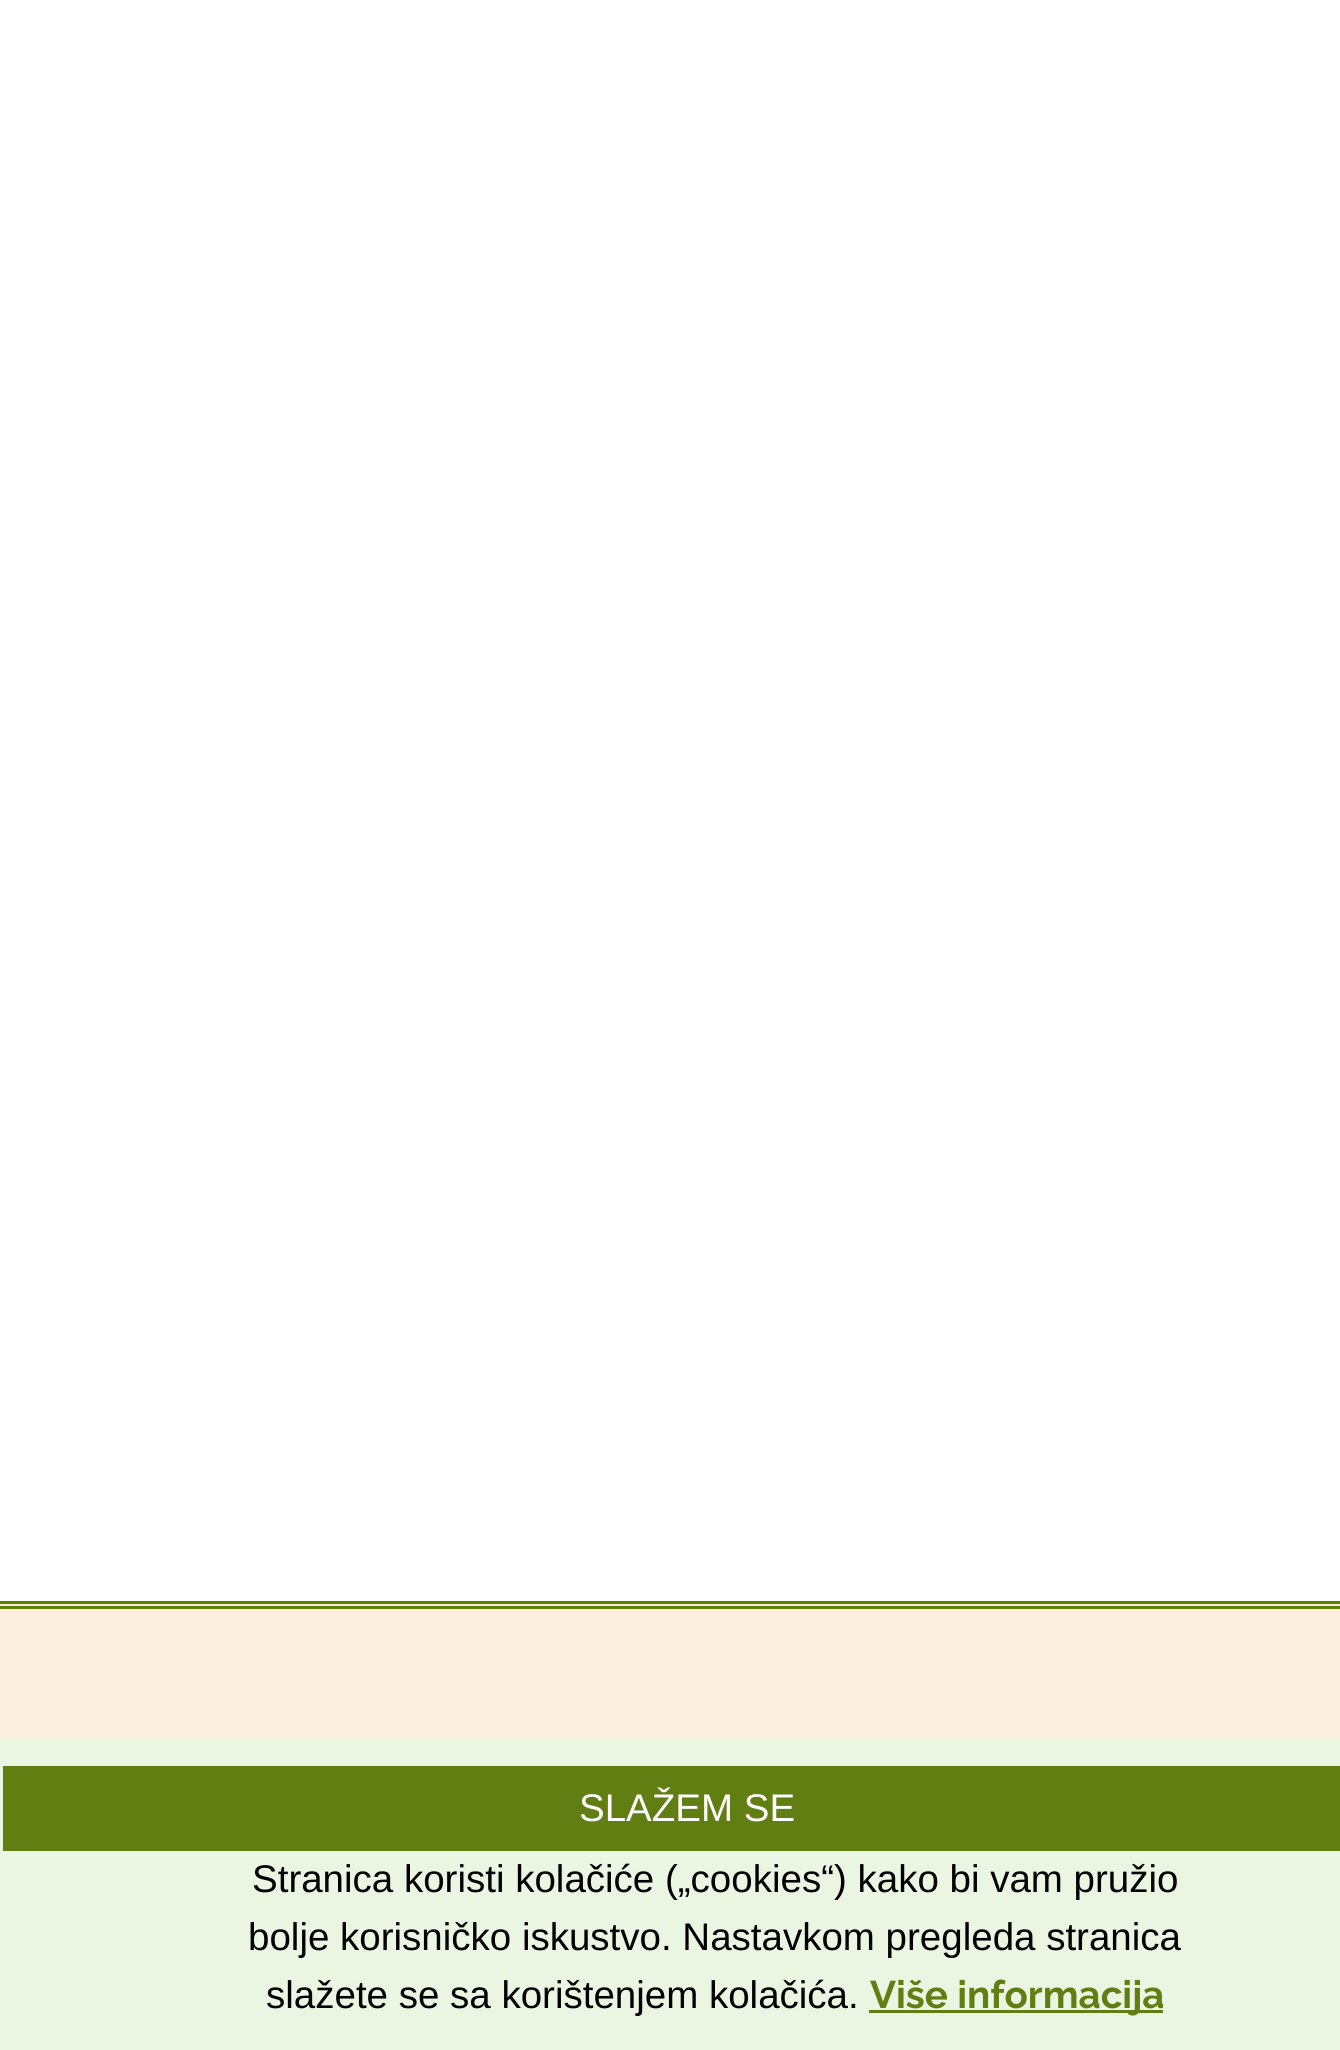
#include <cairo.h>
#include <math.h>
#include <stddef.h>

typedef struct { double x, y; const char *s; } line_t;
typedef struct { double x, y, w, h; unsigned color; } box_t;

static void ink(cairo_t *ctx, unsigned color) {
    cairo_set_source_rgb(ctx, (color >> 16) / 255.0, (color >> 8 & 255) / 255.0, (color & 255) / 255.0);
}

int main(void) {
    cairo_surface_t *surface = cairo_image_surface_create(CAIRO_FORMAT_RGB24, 1340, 2050);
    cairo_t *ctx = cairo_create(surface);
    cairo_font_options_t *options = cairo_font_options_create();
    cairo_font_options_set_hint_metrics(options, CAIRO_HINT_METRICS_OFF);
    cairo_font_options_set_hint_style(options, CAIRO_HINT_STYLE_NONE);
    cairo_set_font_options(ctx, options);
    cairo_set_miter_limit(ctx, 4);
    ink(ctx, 0xFFFFFF);
    cairo_paint(ctx);
    {
        static const box_t items[] = {
            {0, 1604, 1340, 134, 0xFCEEDF},
            {0, 1601, 1340, 3, 0x608000},
            {0, 1606, 1340, 3, 0x608000},
            {0, 1738, 1340, 312, 0xEAF5E2},
            {3, 1766, 1337, 85, 0x607E11},
        };
        for (size_t i = 0; i < sizeof items / sizeof *items; i++) {
            ink(ctx, items[i].color);
            cairo_rectangle(ctx, items[i].x, items[i].y, items[i].w, items[i].h);
            cairo_fill(ctx);
        }
    }
    cairo_select_font_face(ctx, "Liberation Sans", CAIRO_FONT_SLANT_NORMAL, CAIRO_FONT_WEIGHT_NORMAL);
    cairo_set_font_size(ctx, 38.5);
    ink(ctx, 0xFFFFFF);
    cairo_move_to(ctx, 579, 1821);
    cairo_show_text(ctx, "SLAŽEM SE");
    ink(ctx, 0x000000);
    {
        static const line_t items[] = {
            {252, 1892, "Stranica koristi kolačiće („cookies“) kako bi vam pružio"},
            {248, 1950, "bolje korisničko iskustvo. Nastavkom pregleda stranica"},
            {266, 2008, "slažete se sa korištenjem kolačića."},
        };
        for (size_t i = 0; i < sizeof items / sizeof *items; i++) {
            cairo_move_to(ctx, items[i].x, items[i].y);
            cairo_show_text(ctx, items[i].s);
        }
    }
    ink(ctx, 0x607E11);
    cairo_rectangle(ctx, 869, 2010, 294, 3);
    cairo_fill(ctx);
    cairo_select_font_face(ctx, "Raleway", CAIRO_FONT_SLANT_NORMAL, CAIRO_FONT_WEIGHT_BOLD);
    cairo_move_to(ctx, 870, 2008);
    cairo_show_text(ctx, "Više informacija");
    cairo_surface_write_to_png(surface, "image.png");
    cairo_font_options_destroy(options);
    cairo_destroy(ctx);
    cairo_surface_destroy(surface);
    return 0;
}
